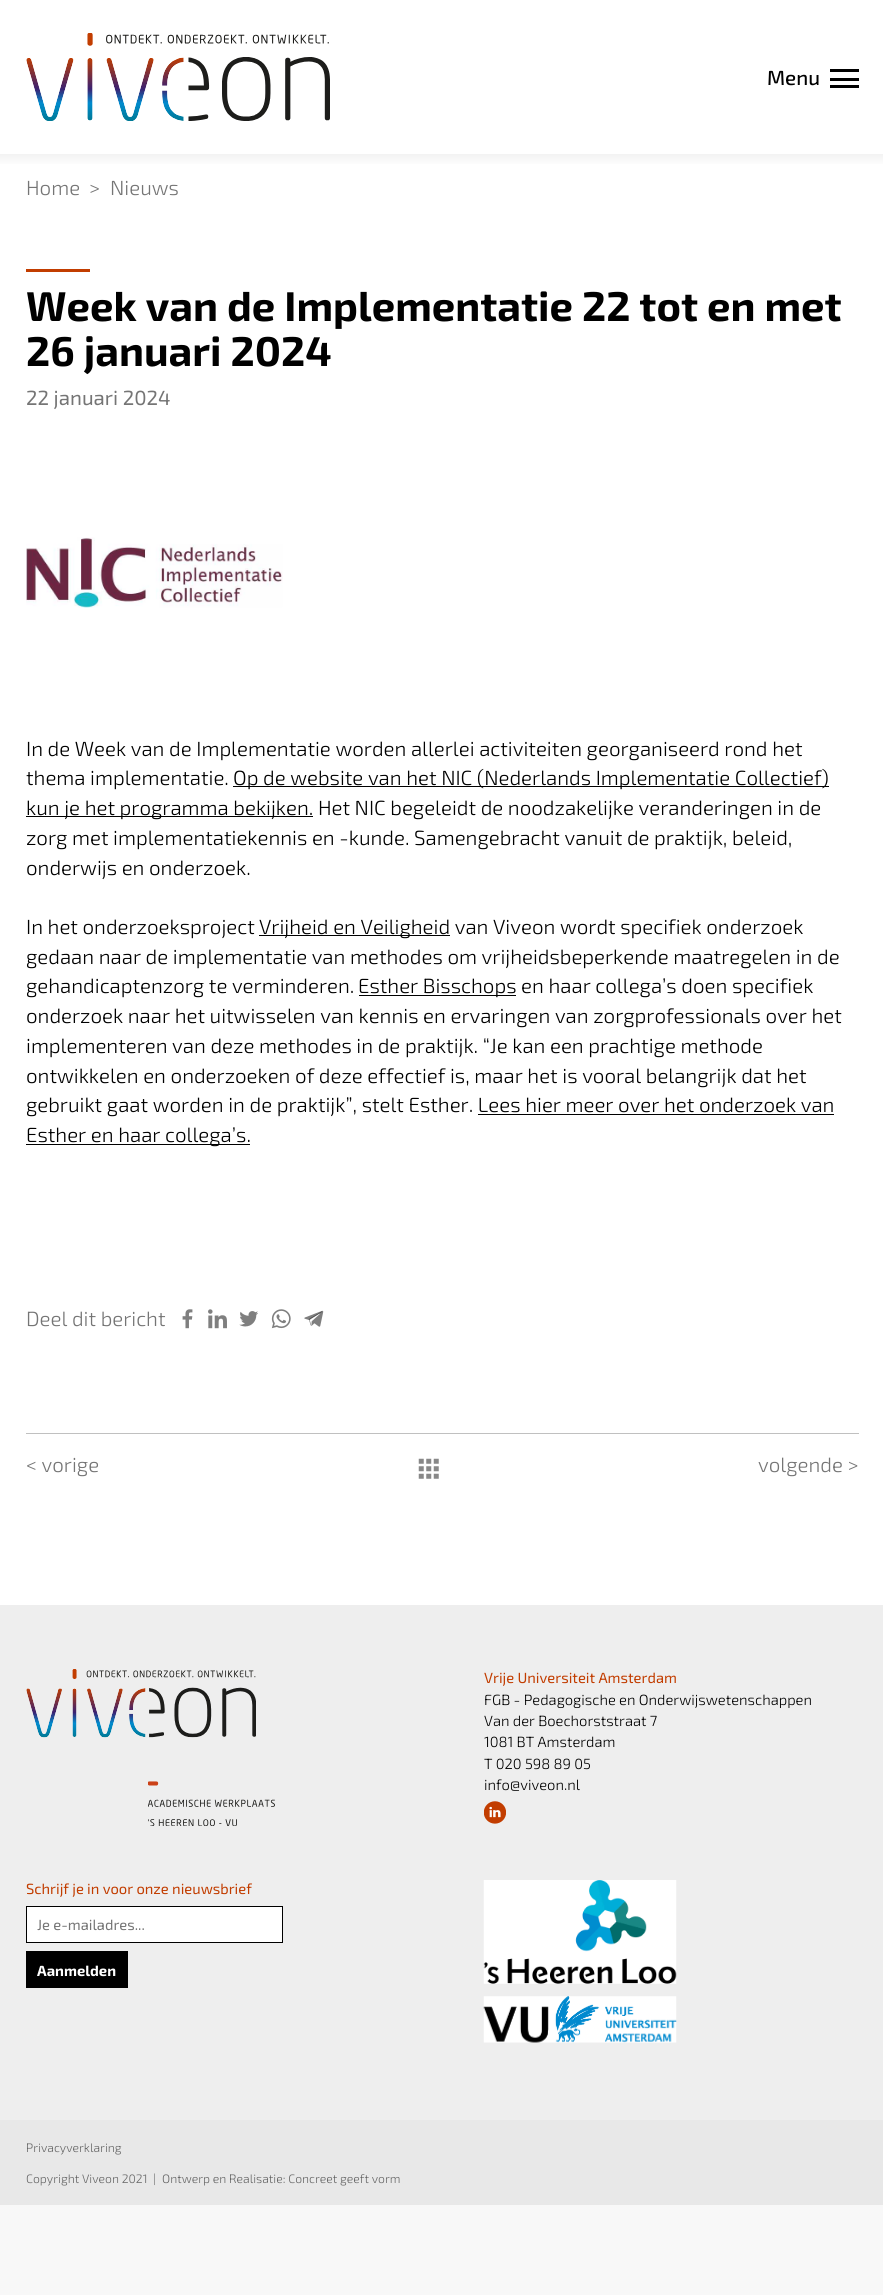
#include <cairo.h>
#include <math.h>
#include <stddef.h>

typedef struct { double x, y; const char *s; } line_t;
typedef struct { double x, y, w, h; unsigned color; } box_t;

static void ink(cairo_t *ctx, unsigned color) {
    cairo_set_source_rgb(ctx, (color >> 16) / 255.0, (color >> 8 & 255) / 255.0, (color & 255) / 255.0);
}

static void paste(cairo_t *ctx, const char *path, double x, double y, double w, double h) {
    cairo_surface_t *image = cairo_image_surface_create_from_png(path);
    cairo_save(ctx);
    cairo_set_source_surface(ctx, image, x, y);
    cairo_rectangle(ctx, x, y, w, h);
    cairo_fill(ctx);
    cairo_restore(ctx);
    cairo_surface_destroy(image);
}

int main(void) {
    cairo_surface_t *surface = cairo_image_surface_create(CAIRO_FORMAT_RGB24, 883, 2295);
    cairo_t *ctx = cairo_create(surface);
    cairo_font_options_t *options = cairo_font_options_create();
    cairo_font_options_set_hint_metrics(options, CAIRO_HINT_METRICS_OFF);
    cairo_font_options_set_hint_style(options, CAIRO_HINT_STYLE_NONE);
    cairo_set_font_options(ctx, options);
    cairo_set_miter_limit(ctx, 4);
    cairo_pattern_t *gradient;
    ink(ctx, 0xF8F8F8);
    cairo_paint(ctx);
    ink(ctx, 0xFFFFFF);
    cairo_rectangle(ctx, 0, 0, 883, 1605);
    cairo_fill(ctx);
    paste(ctx, "media/1.png", 26, 33, 304, 88);
    cairo_select_font_face(ctx, "Exo 2 Medium", CAIRO_FONT_SLANT_NORMAL, CAIRO_FONT_WEIGHT_NORMAL);
    cairo_set_font_size(ctx, 20.5);
    ink(ctx, 0x000000);
    cairo_move_to(ctx, 767, 85);
    cairo_show_text(ctx, "Menu");
    {
        static const box_t items[] = {
            {830, 69, 29, 3, 0x000000},
            {830, 78, 29, 3, 0x000000},
            {830, 85, 29, 3, 0x000000},
        };
        for (size_t i = 0; i < sizeof items / sizeof *items; i++) {
            ink(ctx, items[i].color);
            cairo_rectangle(ctx, items[i].x, items[i].y, items[i].w, items[i].h);
            cairo_fill(ctx);
        }
    }
    gradient = cairo_pattern_create_linear(442, 154, 442, 166);
    cairo_pattern_add_color_stop_rgba(gradient, 0, 0.949, 0.949, 0.949, 1);
    cairo_pattern_add_color_stop_rgba(gradient, 1, 1, 1, 1, 1);
    cairo_set_source(ctx, gradient);
    cairo_pattern_destroy(gradient);
    cairo_rectangle(ctx, 0, 154, 883, 10);
    cairo_fill(ctx);
    cairo_select_font_face(ctx, "Exo 2 Light", CAIRO_FONT_SLANT_NORMAL, CAIRO_FONT_WEIGHT_NORMAL);
    ink(ctx, 0x757575);
    {
        static const line_t items[] = {
            {26, 195, "Home"},
            {89, 195, ">"},
            {110, 195, "Nieuws"},
        };
        for (size_t i = 0; i < sizeof items / sizeof *items; i++) {
            cairo_move_to(ctx, items[i].x, items[i].y);
            cairo_show_text(ctx, items[i].s);
        }
    }
    ink(ctx, 0xC23D00);
    cairo_rectangle(ctx, 26, 269, 64, 3);
    cairo_fill(ctx);
    cairo_select_font_face(ctx, "Exo 2", CAIRO_FONT_SLANT_NORMAL, CAIRO_FONT_WEIGHT_BOLD);
    cairo_set_font_size(ctx, 41.6);
    ink(ctx, 0x000000);
    cairo_move_to(ctx, 26, 321);
    cairo_show_text(ctx, "Week van de Implementatie 22 tot en met");
    cairo_move_to(ctx, 26, 366);
    cairo_show_text(ctx, "26 januari 2024");
    cairo_select_font_face(ctx, "Exo 2", CAIRO_FONT_SLANT_NORMAL, CAIRO_FONT_WEIGHT_NORMAL);
    cairo_set_font_size(ctx, 20.5);
    ink(ctx, 0x757575);
    cairo_move_to(ctx, 26, 405);
    cairo_show_text(ctx, "22 januari 2024");
    paste(ctx, "media/2.png", 26, 537, 257, 71);
    cairo_select_font_face(ctx, "Exo 2 Light", CAIRO_FONT_SLANT_NORMAL, CAIRO_FONT_WEIGHT_NORMAL);
    ink(ctx, 0x000000);
    cairo_move_to(ctx, 26, 756);
    cairo_show_text(ctx, "In de Week van de Implementatie worden allerlei activiteiten georganiseerd rond het");
    cairo_move_to(ctx, 26, 785);
    cairo_show_text(ctx, "thema implementatie.");
    cairo_rectangle(ctx, 233, 786, 596, 1);
    cairo_fill(ctx);
    cairo_move_to(ctx, 233, 785);
    cairo_show_text(ctx, "Op de website van het NIC (Nederlands Implementatie Collectief)");
    cairo_rectangle(ctx, 26, 816, 287, 1);
    cairo_fill(ctx);
    {
        static const line_t items[] = {
            {26, 815, "kun je het programma bekijken. Het NIC begeleidt de noodzakelijke veranderingen in de"},
            {26, 845, "zorg met implementatiekennis en -kunde. Samengebracht vanuit de praktijk, beleid,"},
            {26, 875, "onderwijs en onderzoek."},
            {26, 934, "In het onderzoeksproject"},
        };
        for (size_t i = 0; i < sizeof items / sizeof *items; i++) {
            cairo_move_to(ctx, items[i].x, items[i].y);
            cairo_show_text(ctx, items[i].s);
        }
    }
    cairo_rectangle(ctx, 259, 935, 191, 1);
    cairo_fill(ctx);
    {
        static const line_t items[] = {
            {259, 934, "Vrijheid en Veiligheid van Viveon wordt specifiek onderzoek"},
            {26, 964, "gedaan naar de implementatie van methodes om vrijheidsbeperkende maatregelen in de"},
            {26, 993, "gehandicaptenzorg te verminderen."},
        };
        for (size_t i = 0; i < sizeof items / sizeof *items; i++) {
            cairo_move_to(ctx, items[i].x, items[i].y);
            cairo_show_text(ctx, items[i].s);
        }
    }
    cairo_rectangle(ctx, 359, 995, 157, 1);
    cairo_fill(ctx);
    {
        static const line_t items[] = {
            {358, 993, "Esther Bisschops en haar collega’s doen specifiek"},
            {26, 1023, "onderzoek naar het uitwisselen van kennis en ervaringen van zorgprofessionals over het"},
            {26, 1053, "implementeren van deze methodes in de praktijk. “Je kan een prachtige methode"},
            {26, 1083, "ontwikkelen en onderzoeken of deze effectief is, maar het is vooral belangrijk dat het"},
            {26, 1112, "gebruikt gaat worden in de praktijk”, stelt Esther. Lees hier meer over het onderzoek van"},
        };
        for (size_t i = 0; i < sizeof items / sizeof *items; i++) {
            cairo_move_to(ctx, items[i].x, items[i].y);
            cairo_show_text(ctx, items[i].s);
        }
    }
    cairo_rectangle(ctx, 26, 1144, 224, 1);
    cairo_fill(ctx);
    cairo_move_to(ctx, 26, 1142);
    cairo_show_text(ctx, "Esther en haar collega’s.");
    cairo_rectangle(ctx, 478, 1114, 356, 1);
    cairo_fill(ctx);
    ink(ctx, 0x757575);
    cairo_move_to(ctx, 26, 1326);
    cairo_show_text(ctx, "Deel dit bericht");
    paste(ctx, "media/3.png", 182, 1309, 11, 20);
    paste(ctx, "media/4.png", 208, 1309, 19, 20);
    paste(ctx, "media/5.png", 239, 1311, 19, 16);
    paste(ctx, "media/6.png", 271, 1309, 20, 20);
    paste(ctx, "media/7.png", 304, 1310, 20, 17);
    ink(ctx, 0xC0C0C0);
    cairo_rectangle(ctx, 26, 1433, 833, 1);
    cairo_fill(ctx);
    ink(ctx, 0x757575);
    cairo_move_to(ctx, 26, 1472);
    cairo_show_text(ctx, "< vorige");
    paste(ctx, "media/8.png", 418, 1458, 21, 21);
    cairo_move_to(ctx, 758, 1472);
    cairo_show_text(ctx, "volgende >");
    ink(ctx, 0xEEEEEE);
    cairo_rectangle(ctx, 0, 1605, 883, 515);
    cairo_fill(ctx);
    paste(ctx, "media/9.png", 26, 1669, 230, 69);
    paste(ctx, "media/10.png", 148, 1781, 127, 45);
    cairo_select_font_face(ctx, "Exo 2", CAIRO_FONT_SLANT_NORMAL, CAIRO_FONT_WEIGHT_NORMAL);
    cairo_set_font_size(ctx, 14.75);
    ink(ctx, 0xC23D00);
    cairo_move_to(ctx, 484, 1683);
    cairo_show_text(ctx, "Vrije Universiteit Amsterdam");
    cairo_select_font_face(ctx, "Exo 2 Light", CAIRO_FONT_SLANT_NORMAL, CAIRO_FONT_WEIGHT_NORMAL);
    ink(ctx, 0x000000);
    {
        static const line_t items[] = {
            {484, 1705, "FGB - Pedagogische en Onderwijswetenschappen"},
            {484, 1726, "Van der Boechorststraat 7"},
            {484, 1747, "1081 BT Amsterdam"},
            {484, 1769, "T 020 598 89 05"},
            {484, 1790, "info@viveon.nl"},
        };
        for (size_t i = 0; i < sizeof items / sizeof *items; i++) {
            cairo_move_to(ctx, items[i].x, items[i].y);
            cairo_show_text(ctx, items[i].s);
        }
    }
    paste(ctx, "media/11.png", 484, 1801, 22, 23);
    cairo_select_font_face(ctx, "Exo 2", CAIRO_FONT_SLANT_NORMAL, CAIRO_FONT_WEIGHT_NORMAL);
    ink(ctx, 0xC23D00);
    cairo_move_to(ctx, 26, 1894);
    cairo_show_text(ctx, "Schrijf je in voor onze nieuwsbrief");
    ink(ctx, 0xFFFFFF);
    cairo_rectangle(ctx, 26.5, 1906.5, 256, 36);
    cairo_fill_preserve(ctx);
    ink(ctx, 0x000000);
    cairo_set_line_width(ctx, 1);
    cairo_stroke(ctx);
    ink(ctx, 0x757575);
    cairo_move_to(ctx, 37, 1930);
    cairo_show_text(ctx, "Je e-mailadres...");
    ink(ctx, 0x000000);
    cairo_rectangle(ctx, 26, 1951, 102, 37);
    cairo_fill(ctx);
    cairo_select_font_face(ctx, "Exo 2", CAIRO_FONT_SLANT_NORMAL, CAIRO_FONT_WEIGHT_BOLD);
    ink(ctx, 0xFFFFFF);
    cairo_move_to(ctx, 37, 1976);
    cairo_show_text(ctx, "Aanmelden");
    paste(ctx, "media/12.png", 483, 1880, 194, 104);
    paste(ctx, "media/13.png", 483, 1996, 194, 47);
    ink(ctx, 0xE8E8E8);
    cairo_rectangle(ctx, 0, 2120, 883, 85);
    cairo_fill(ctx);
    cairo_select_font_face(ctx, "Exo 2 Light", CAIRO_FONT_SLANT_NORMAL, CAIRO_FONT_WEIGHT_NORMAL);
    cairo_set_font_size(ctx, 12.2);
    ink(ctx, 0x666666);
    {
        static const line_t items[] = {
            {26, 2152, "Privacyverklaring"},
            {26, 2183, "Copyright Viveon 2021"},
            {153, 2183, "|"},
            {162, 2183, "Ontwerp en Realisatie: Concreet geeft vorm"},
        };
        for (size_t i = 0; i < sizeof items / sizeof *items; i++) {
            cairo_move_to(ctx, items[i].x, items[i].y);
            cairo_show_text(ctx, items[i].s);
        }
    }
    cairo_surface_write_to_png(surface, "image.png");
    cairo_font_options_destroy(options);
    cairo_destroy(ctx);
    cairo_surface_destroy(surface);
    return 0;
}
